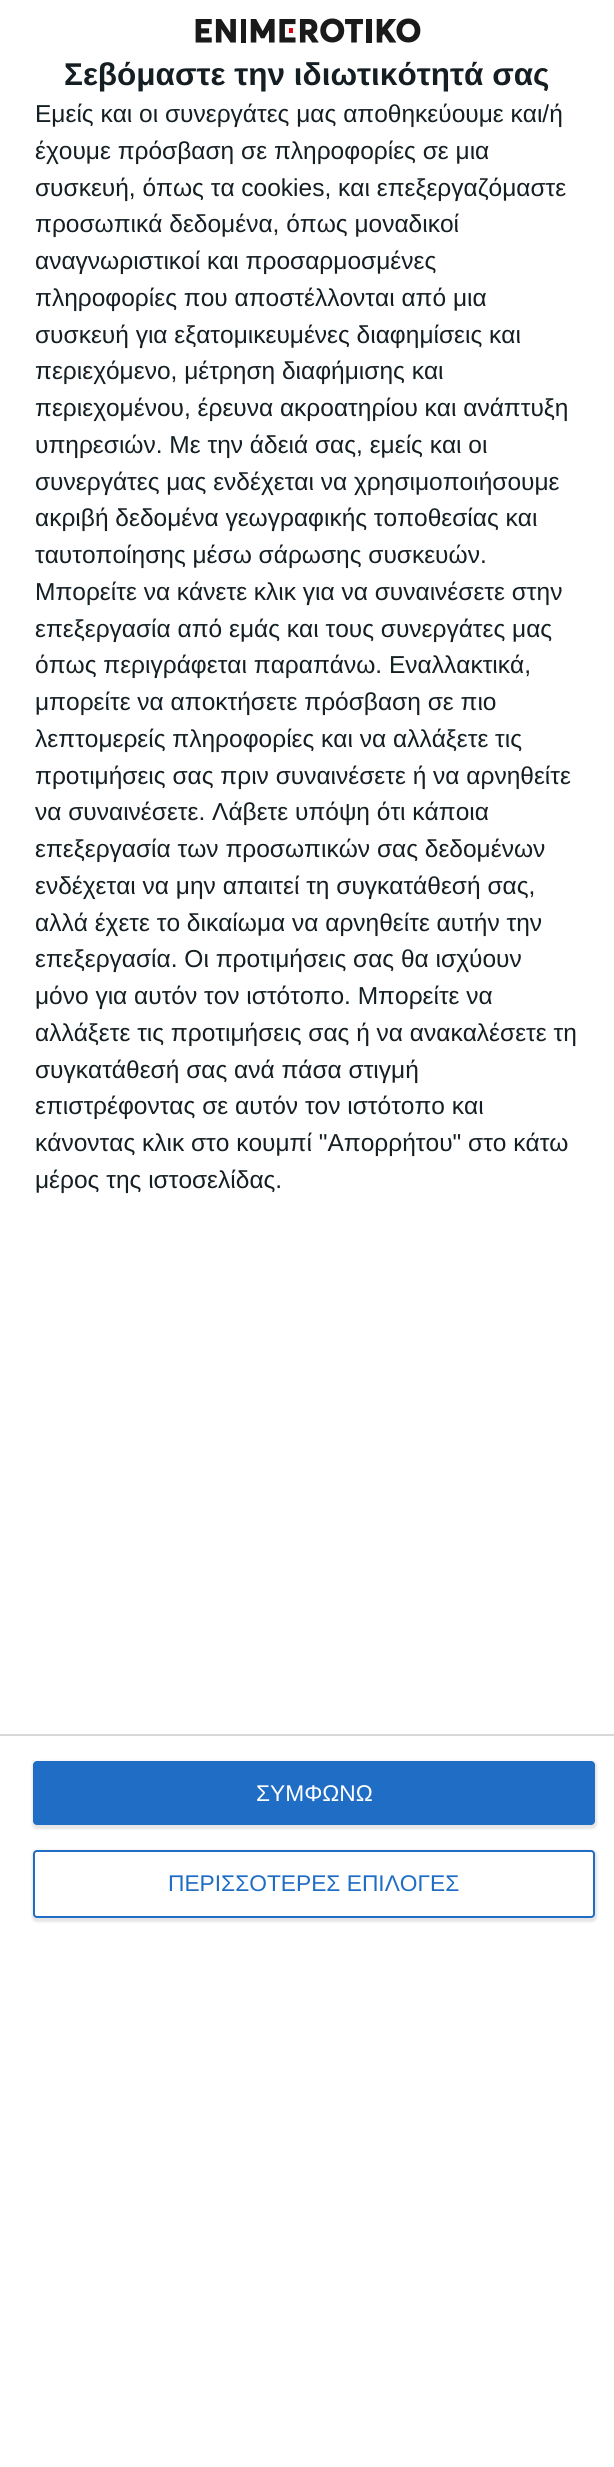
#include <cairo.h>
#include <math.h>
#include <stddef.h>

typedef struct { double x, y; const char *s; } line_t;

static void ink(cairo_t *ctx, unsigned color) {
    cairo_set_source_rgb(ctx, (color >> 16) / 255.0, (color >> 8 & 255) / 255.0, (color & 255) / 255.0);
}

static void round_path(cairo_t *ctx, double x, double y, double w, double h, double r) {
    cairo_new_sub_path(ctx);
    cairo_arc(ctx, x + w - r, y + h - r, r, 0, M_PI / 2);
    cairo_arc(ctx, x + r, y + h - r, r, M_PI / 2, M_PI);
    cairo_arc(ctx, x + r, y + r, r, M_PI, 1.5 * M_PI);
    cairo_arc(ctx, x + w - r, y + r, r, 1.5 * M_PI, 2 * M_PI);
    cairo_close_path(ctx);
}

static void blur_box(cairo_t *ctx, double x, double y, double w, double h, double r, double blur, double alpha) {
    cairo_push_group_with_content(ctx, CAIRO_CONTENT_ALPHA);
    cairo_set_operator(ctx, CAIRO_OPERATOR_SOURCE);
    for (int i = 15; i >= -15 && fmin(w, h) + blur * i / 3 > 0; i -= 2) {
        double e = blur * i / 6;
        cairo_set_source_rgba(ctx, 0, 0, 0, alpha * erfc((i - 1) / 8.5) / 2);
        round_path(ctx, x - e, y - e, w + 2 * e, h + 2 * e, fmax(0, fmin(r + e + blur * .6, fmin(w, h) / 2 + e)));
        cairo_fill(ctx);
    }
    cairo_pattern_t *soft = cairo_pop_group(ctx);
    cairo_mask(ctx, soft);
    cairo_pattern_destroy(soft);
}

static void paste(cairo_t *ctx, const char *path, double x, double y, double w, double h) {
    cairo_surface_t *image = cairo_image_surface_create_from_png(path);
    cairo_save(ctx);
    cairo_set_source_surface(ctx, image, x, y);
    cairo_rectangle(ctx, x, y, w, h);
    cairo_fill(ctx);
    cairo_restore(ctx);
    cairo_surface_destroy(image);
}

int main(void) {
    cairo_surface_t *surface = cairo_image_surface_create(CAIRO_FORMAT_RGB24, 614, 2467);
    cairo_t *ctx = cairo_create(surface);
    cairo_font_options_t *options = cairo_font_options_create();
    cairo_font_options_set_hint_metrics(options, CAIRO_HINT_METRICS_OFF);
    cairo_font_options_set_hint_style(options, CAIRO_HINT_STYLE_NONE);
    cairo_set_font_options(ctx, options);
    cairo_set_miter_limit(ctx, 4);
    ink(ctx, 0xFFFFFF);
    cairo_paint(ctx);
    paste(ctx, "media/1.png", 195, 18, 226, 25);
    cairo_select_font_face(ctx, "Liberation Sans", CAIRO_FONT_SLANT_NORMAL, CAIRO_FONT_WEIGHT_BOLD);
    cairo_set_font_size(ctx, 31.5);
    ink(ctx, 0x141E23);
    cairo_move_to(ctx, 64, 85);
    cairo_show_text(ctx, "Σεβόμαστε την ιδιωτικότητά σας");
    cairo_select_font_face(ctx, "Liberation Sans", CAIRO_FONT_SLANT_NORMAL, CAIRO_FONT_WEIGHT_NORMAL);
    cairo_set_font_size(ctx, 24.5);
    {
        static const line_t items[] = {
            {35, 122, "Εμείς και οι συνεργάτες μας αποθηκεύουμε και/ή"},
            {35, 159, "έχουμε πρόσβαση σε πληροφορίες σε μια"},
            {35, 196, "συσκευή, όπως τα cookies, και επεξεργαζόμαστε"},
            {35, 232, "προσωπικά δεδομένα, όπως μοναδικοί"},
            {35, 269, "αναγνωριστικοί και προσαρμοσμένες"},
            {35, 306, "πληροφορίες που αποστέλλονται από μια"},
            {35, 343, "συσκευή για εξατομικευμένες διαφημίσεις και"},
            {35, 379, "περιεχόμενο, μέτρηση διαφήμισης και"},
            {35, 416, "περιεχομένου, έρευνα ακροατηρίου και ανάπτυξη"},
            {35, 453, "υπηρεσιών. Με την άδειά σας, εμείς και οι"},
            {35, 490, "συνεργάτες μας ενδέχεται να χρησιμοποιήσουμε"},
            {35, 526, "ακριβή δεδομένα γεωγραφικής τοποθεσίας και"},
            {35, 563, "ταυτοποίησης μέσω σάρωσης συσκευών."},
            {35, 600, "Μπορείτε να κάνετε κλικ για να συναινέσετε στην"},
            {35, 637, "επεξεργασία από εμάς και τους συνεργάτες μας"},
            {35, 673, "όπως περιγράφεται παραπάνω. Εναλλακτικά,"},
            {35, 710, "μπορείτε να αποκτήσετε πρόσβαση σε πιο"},
            {35, 747, "λεπτομερείς πληροφορίες και να αλλάξετε τις"},
            {35, 784, "προτιμήσεις σας πριν συναινέσετε ή να αρνηθείτε"},
            {35, 820, "να συναινέσετε. Λάβετε υπόψη ότι κάποια"},
            {35, 857, "επεξεργασία των προσωπικών σας δεδομένων"},
            {35, 894, "ενδέχεται να μην απαιτεί τη συγκατάθεσή σας,"},
            {35, 931, "αλλά έχετε το δικαίωμα να αρνηθείτε αυτήν την"},
            {35, 967, "επεξεργασία. Οι προτιμήσεις σας θα ισχύουν"},
            {35, 1004, "μόνο για αυτόν τον ιστότοπο. Μπορείτε να"},
            {35, 1041, "αλλάξετε τις προτιμήσεις σας ή να ανακαλέσετε τη"},
            {35, 1078, "συγκατάθεσή σας ανά πάσα στιγμή"},
            {35, 1114, "επιστρέφοντας σε αυτόν τον ιστότοπο και"},
            {35, 1151, "κάνοντας κλικ στο κουμπί \"Απορρήτου\" στο κάτω"},
            {35, 1188, "μέρος της ιστοσελίδας."},
        };
        for (size_t i = 0; i < sizeof items / sizeof *items; i++) {
            cairo_move_to(ctx, items[i].x, items[i].y);
            cairo_show_text(ctx, items[i].s);
        }
    }
    ink(ctx, 0xD8D8D8);
    cairo_rectangle(ctx, 0, 1734, 614, 2);
    cairo_fill(ctx);
    ink(ctx, 0x000000);
    blur_box(ctx, 32, 1761, 565, 68, 5, 1, 0.1);
    ink(ctx, 0x206DC5);
    round_path(ctx, 33, 1761, 562, 64, 4);
    cairo_fill(ctx);
    cairo_set_font_size(ctx, 22.75);
    ink(ctx, 0xFFFFFF);
    cairo_move_to(ctx, 256, 1801);
    cairo_show_text(ctx, "ΣΥΜΦΩΝΩ");
    ink(ctx, 0x000000);
    blur_box(ctx, 32, 1850, 565, 72, 5, 1, 0.1);
    ink(ctx, 0xFFFFFF);
    round_path(ctx, 34, 1851, 560, 66, 3);
    cairo_fill_preserve(ctx);
    ink(ctx, 0x206DC5);
    cairo_stroke(ctx);
    cairo_move_to(ctx, 168, 1891);
    cairo_show_text(ctx, "ΠΕΡΙΣΣΟΤΕΡΕΣ ΕΠΙΛΟΓΕΣ");
    cairo_surface_write_to_png(surface, "image.png");
    cairo_font_options_destroy(options);
    cairo_destroy(ctx);
    cairo_surface_destroy(surface);
    return 0;
}
